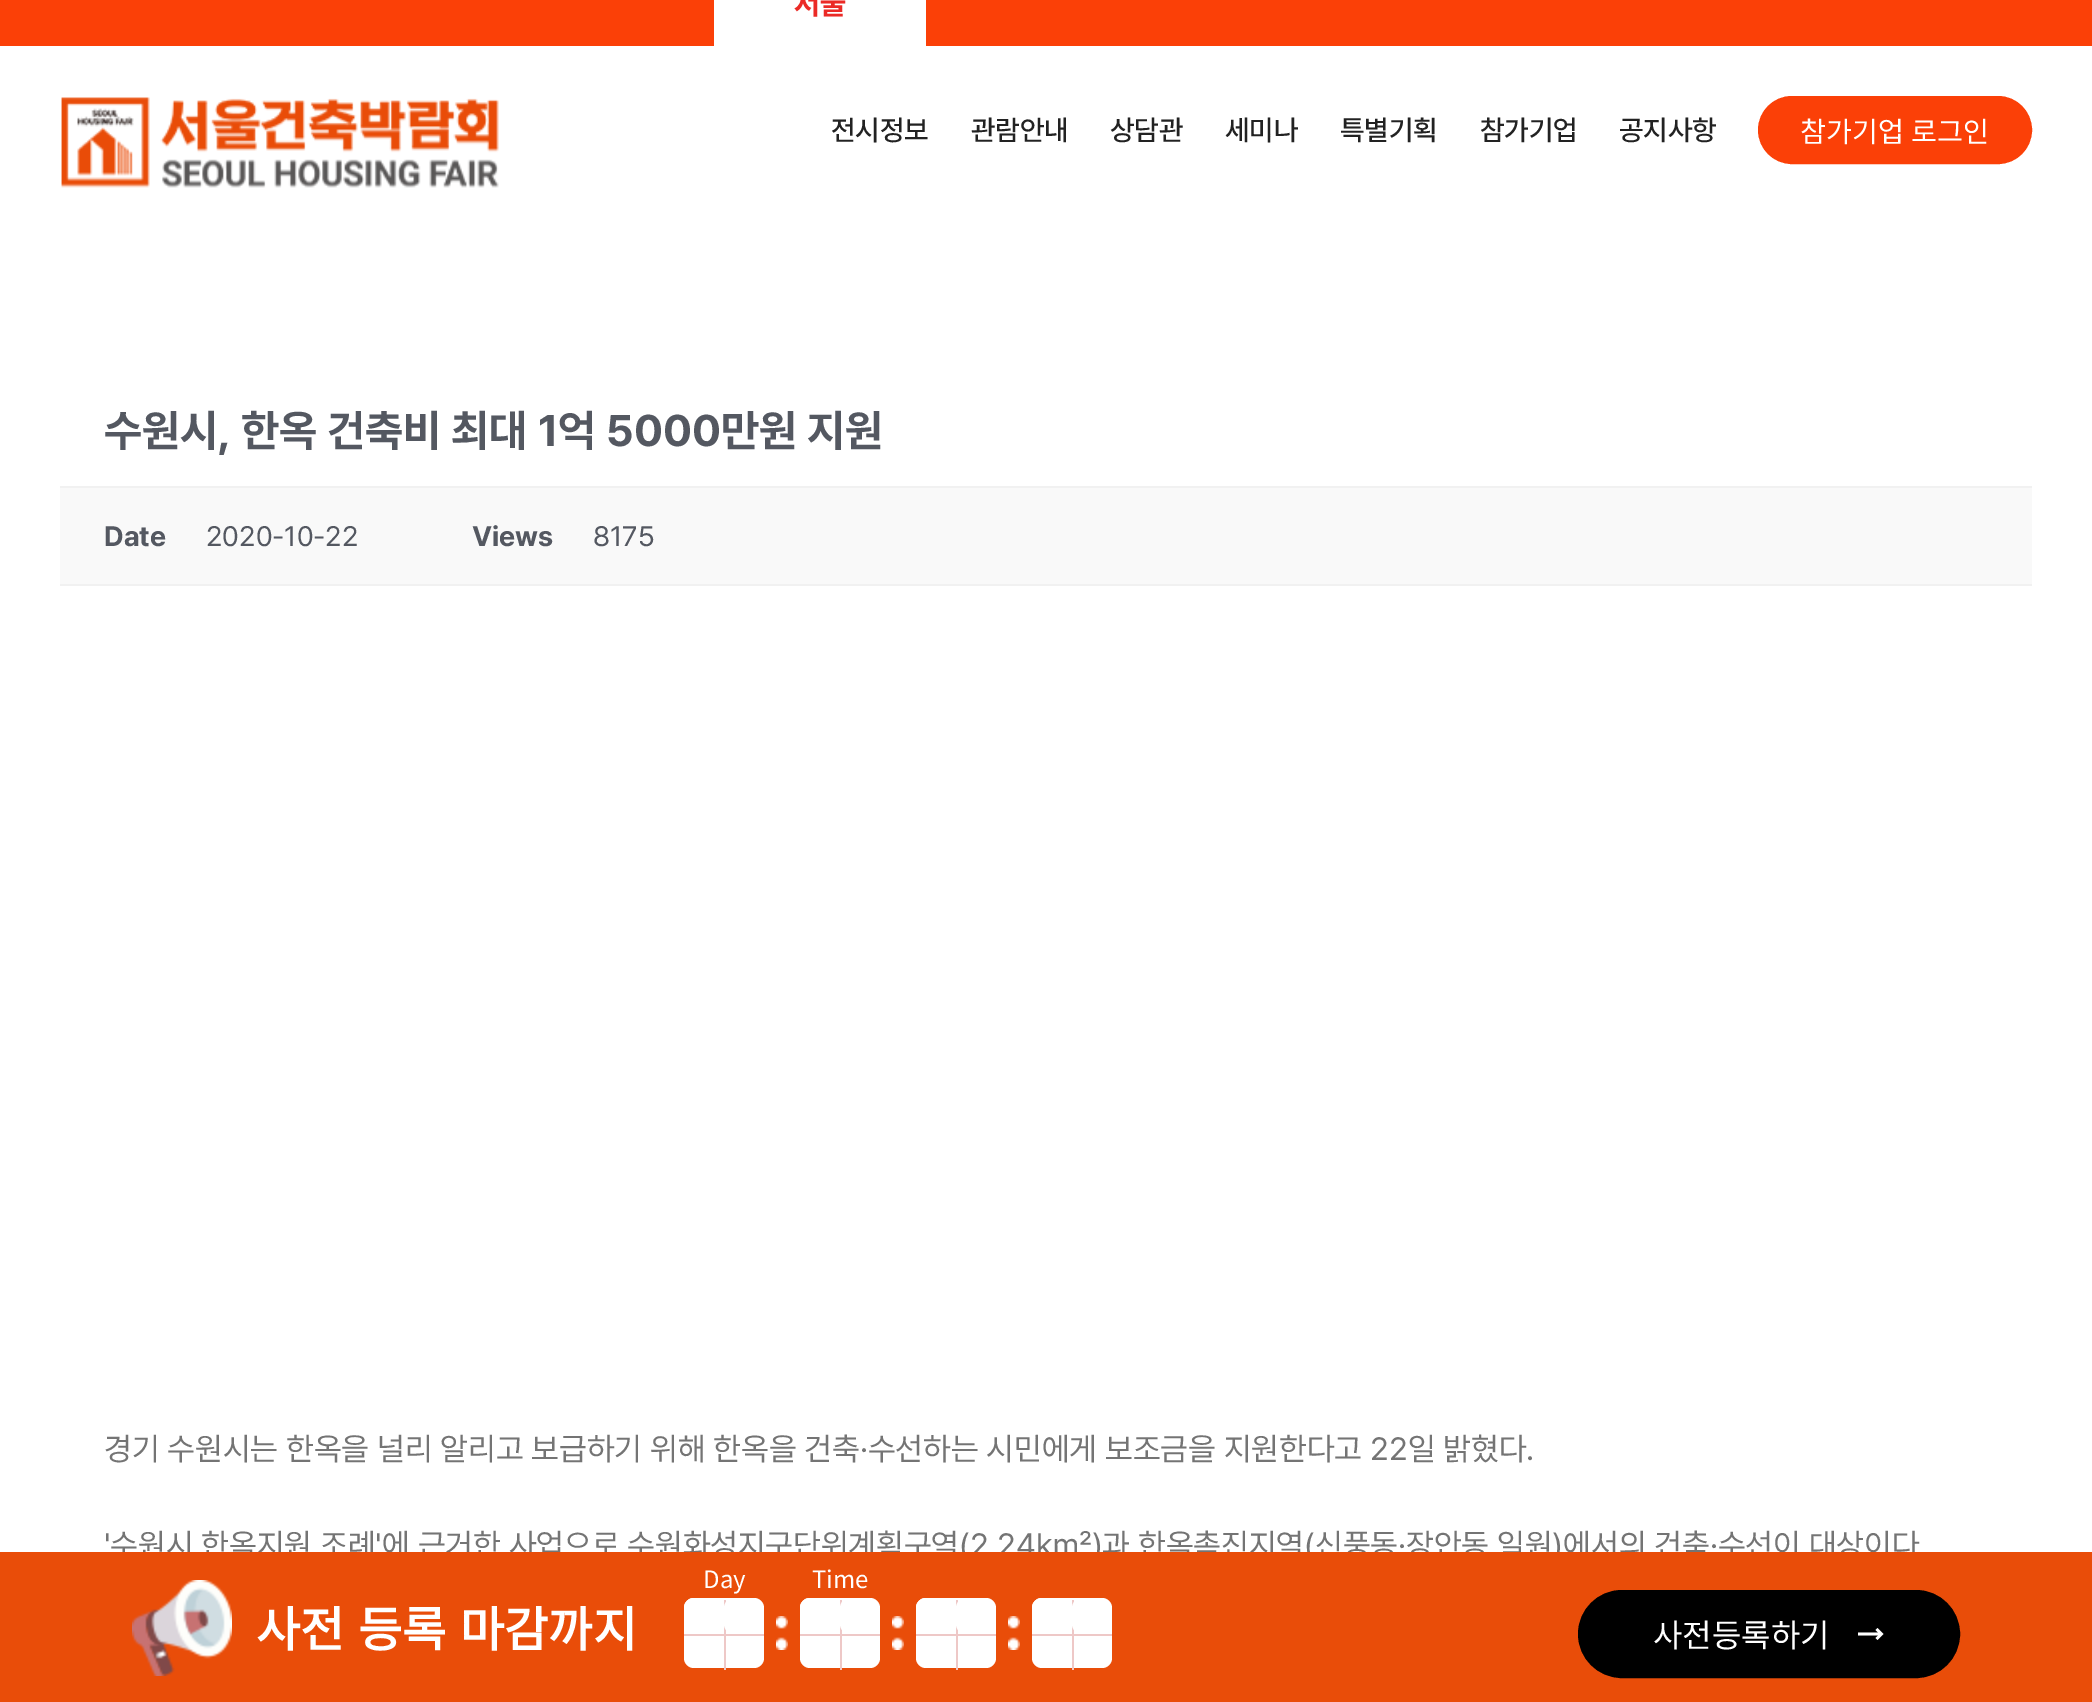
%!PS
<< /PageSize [2092 1702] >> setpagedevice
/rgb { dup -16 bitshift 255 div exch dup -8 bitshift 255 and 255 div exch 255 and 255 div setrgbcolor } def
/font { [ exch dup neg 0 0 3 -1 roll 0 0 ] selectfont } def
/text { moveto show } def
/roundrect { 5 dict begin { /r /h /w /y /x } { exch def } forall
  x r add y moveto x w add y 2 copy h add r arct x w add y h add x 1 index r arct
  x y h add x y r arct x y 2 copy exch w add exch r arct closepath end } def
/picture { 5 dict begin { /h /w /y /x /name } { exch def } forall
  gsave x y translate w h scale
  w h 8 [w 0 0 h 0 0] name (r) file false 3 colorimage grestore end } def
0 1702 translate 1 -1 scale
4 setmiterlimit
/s1 { /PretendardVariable-Bold 30 font 16#EB2A26 rgb } def
/s2 { /PretendardVariable-Medium 28.25 font 16#222222 rgb } def
/s3 { /PretendardVariable-Bold 44 font 16#545861 rgb } def
/s4 { /PretendardVariable-Bold 28 font 16#545861 rgb } def
/s5 { /PretendardVariable-Regular 28 font 16#545861 rgb } def
/s6 { /PretendardVariable-Regular 32 font 16#747474 rgb } def
/s7 { /NotoSansKR-Thin 24 font 16#FFFFFF rgb } def
/s8 { /NotoSansKR-Thin 32 font 16#FFFFFF rgb } def
16#FFFFFF rgb
0 0 2092 1702 rectfill
16#FB4007 rgb
0 0 2092 46 rectfill
16#FFFFFF rgb
714 0 212 46 rectfill
s1
(서울) 794 14 text
(pic1.raw) 61 97 438 91 picture
s2
(전시정보) 831 140 text
(관람안내) 971 140 text
(상담관) 1110 140 text
(세미나) 1225 140 text
(특별기획) 1340 140 text
(참가기업) 1480 140 text
(공지사항) 1619 140 text
16#FB4007 rgb
1759 97 272 66 33 roundrect gsave fill grestore
2 setlinewidth
stroke
/NotoSansKR-Thin 28.25 font
16#FFFFFF rgb
1800 142 moveto 1 0 32 (참가기업 로그인) widthshow
s3
(수원시, 한옥 건축비 최대 1억 5000만원 지원) 104 446 text
16#F9F9F9 rgb
60 488 1972 96 rectfill
16#F1F1F1 rgb
60 486 1972 2 rectfill
60 584 1972 2 rectfill
s4
(Date) 104 546 text
s5
(2020-10-22) 206 546 text
s4
(Views) 472 546 text
s5
(8175) 593 546 text
s6
(경기 수원시는 한옥을 널리 알리고 보급하기 위해 한옥을 건축·수선하는 시민에게 보조금을 지원한다고 22일 밝혔다.) 104 1460 text
('수원시 한옥지원 조례'에 근거한 사업으로 수원화성지구단위계획구역\(2.24㎢\)과 한옥촉진지역\(신풍동·장안동 일원\)에서의 건축·수선이 대상이다) 104 1556 text
16#E94D09 rgb
0 1552 2092 150 rectfill
16#FFFFFF rgb
684 1598 80 70 10 roundrect fill
s7
(Day) 703 1588 text
684 1598 38 36 10 roundrect fill
16#EEC8C7 rgb
724 1600 2 70 rectfill
16#FFFFFF rgb
724 1598 38 36 10 roundrect fill
16#EEC8C7 rgb
684 1634 80 2 rectfill
16#FFFFFF rgb
800 1598 80 70 10 roundrect fill
(Time) 812 1588 text
800 1598 38 36 10 roundrect fill
16#EEC8C7 rgb
840 1600 2 70 rectfill
16#FFFFFF rgb
840 1598 38 36 10 roundrect fill
16#EEC8C7 rgb
800 1634 80 2 rectfill
(pic2.raw) 776 1616 12 34 picture
(pic2.raw) 892 1616 12 34 picture
16#FFFFFF rgb
916 1598 80 70 10 roundrect fill
916 1598 38 36 10 roundrect fill
16#EEC8C7 rgb
956 1600 2 70 rectfill
16#FFFFFF rgb
956 1598 38 36 10 roundrect fill
16#EEC8C7 rgb
916 1634 80 2 rectfill
(pic2.raw) 1008 1616 12 34 picture
16#FFFFFF rgb
1032 1598 80 70 10 roundrect fill
1032 1598 38 36 10 roundrect fill
16#EEC8C7 rgb
1072 1600 2 70 rectfill
16#FFFFFF rgb
1072 1598 38 36 10 roundrect fill
16#EEC8C7 rgb
1032 1634 80 2 rectfill
(pic3.raw) 132 1580 100 96 picture
/NotoSansKR-Bold 48 font
16#FFFFFF rgb
256 1647 moveto 3 0 32 (사전 등록 마감까지) widthshow
16#000000 rgb
1580 1592 378 84 42 roundrect gsave fill grestore
4 setlinewidth
stroke
s8
(사전등록하기) 1653 1647 text
1877.5 1640 moveto 1875.5 1638 lineto 1878 1635.5 lineto 1858 1635.5 lineto 1858 1632.5 lineto 1878 1632.5 lineto 1875.5 1630 lineto 1877.5 1628 lineto 1883.5 1634 lineto closepath fill
showpage
